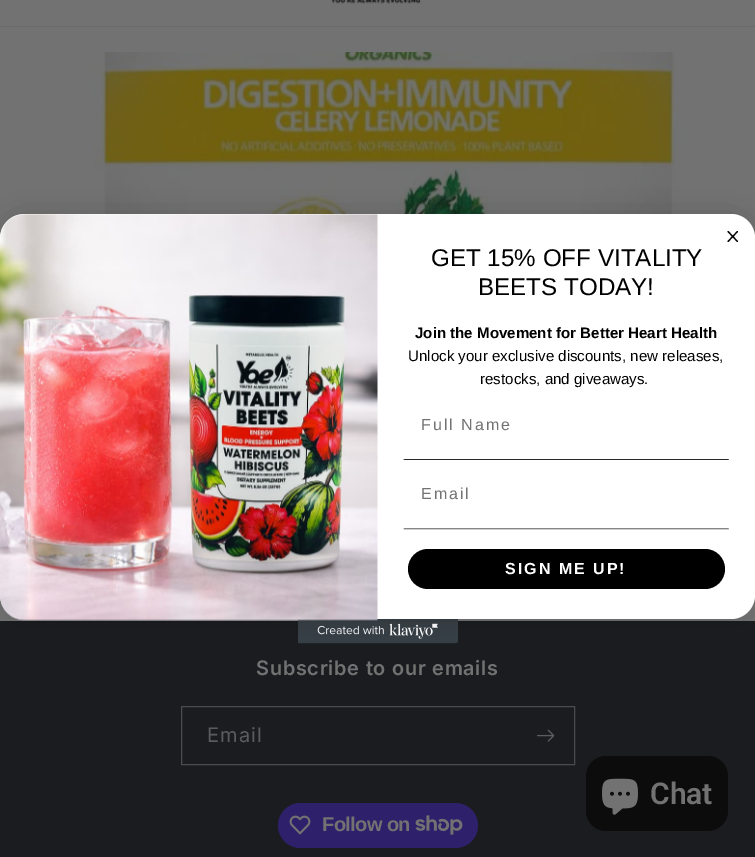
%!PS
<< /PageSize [755 857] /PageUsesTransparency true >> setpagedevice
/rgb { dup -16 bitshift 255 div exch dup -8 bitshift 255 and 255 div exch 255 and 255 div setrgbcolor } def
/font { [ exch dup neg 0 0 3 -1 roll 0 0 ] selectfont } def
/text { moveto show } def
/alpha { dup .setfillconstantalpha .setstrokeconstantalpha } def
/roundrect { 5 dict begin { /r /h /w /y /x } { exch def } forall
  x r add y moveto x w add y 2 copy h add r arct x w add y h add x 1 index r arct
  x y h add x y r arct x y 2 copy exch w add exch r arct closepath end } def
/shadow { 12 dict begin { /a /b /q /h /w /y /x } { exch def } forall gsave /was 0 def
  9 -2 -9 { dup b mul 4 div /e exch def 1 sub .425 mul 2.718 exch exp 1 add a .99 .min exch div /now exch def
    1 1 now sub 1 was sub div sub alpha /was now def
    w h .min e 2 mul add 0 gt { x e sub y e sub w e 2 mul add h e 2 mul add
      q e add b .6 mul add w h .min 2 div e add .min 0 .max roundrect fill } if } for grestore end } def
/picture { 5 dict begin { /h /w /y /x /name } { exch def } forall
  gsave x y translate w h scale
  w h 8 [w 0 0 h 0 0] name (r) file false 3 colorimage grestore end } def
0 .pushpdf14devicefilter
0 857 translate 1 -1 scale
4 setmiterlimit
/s1 { /LiberationSans-Regular 24.2 font 16#000000 rgb } def
/s2 { /LiberationSans-Bold 15.1 font 16#000000 rgb } def
/s3 { /LiberationSans-Regular 15.1 font 16#000000 rgb } def
/s4 { /Roboto-SemiBold 30 font 16#727272 rgb } def
16#727272 rgb
0 0 755 857 rectfill
16#6A6A6A rgb
0 26 755 1 rectfill
(pic1.raw) 331 0 90 4 picture
(pic2.raw) 19 52 717 163 picture
16#1A1C20 rgb
0 621 755 236 rectfill
(pic6.raw) 298 619 160 25 picture
16#000000 rgb
0 214 755 405 24 15 0.15 shadow
16#FFFFFF rgb
0 214 755 405 24 roundrect fill
16#000000 rgb
1.2 setlinewidth
1 setlinecap
1 setlinejoin
728 231.5 moveto 737.5 241.5 lineto 728 241.5 moveto 737.5 231.5 lineto closepath stroke
(pic3.raw) 0 214 378 407 picture
s1
(GET 15% OFF VITALITY) 431 266 text
(BEETS TODAY!) 478 295 text
s2
(Join the Movement for Better Heart Health) 415 338 text
s3
(Unlock your exclusive discounts, new releases,) 408 361 text
(restocks, and giveaways.) 480 384 text
/LiberationSans-Regular 16 font
16#727272 rgb
421 430 moveto 2 0 (Full Name) ashow
(pic4.raw) 403 459 326 1 picture
421 499 moveto 2 0 (Email) ashow
(pic5.raw) 403 528 326 2 picture
16#000000 rgb
408 549 317 40 20 roundrect fill
/LiberationSans-Bold 16 font
16#FFFFFF rgb
505 574 moveto 2 0 (SIGN ME UP!) ashow
/Inter-SemiBold 20 font
16#727272 rgb
256 675 moveto 0.75 0 (Subscribe to our emails) ashow
16#4A4B4D rgb
1 setlinewidth
0 setlinecap
0 setlinejoin
181.5 706.5 393 58 rectstroke
/Inter-Regular 20 font
16#5C5C5E rgb
207 742 moveto 1.25 0 (Email) ashow
(pic7.raw) 537 729 18 13 picture
16#2E206A rgb
278 803 200 45 22.5 roundrect fill
(pic8.raw) 289 815 22 20 picture
/LiberationSans-Bold 20 font
16#727272 rgb
322 831 moveto -0.6 0 (Follow on) ashow
(pic9.raw) 415 815 48 20 picture
16#0C0C0C rgb
586 756 142 75 20 roundrect fill
(pic10.raw) 602 778 36 37 picture
s4
(Chat) 650 804 text
.poppdf14devicefilter showpage
